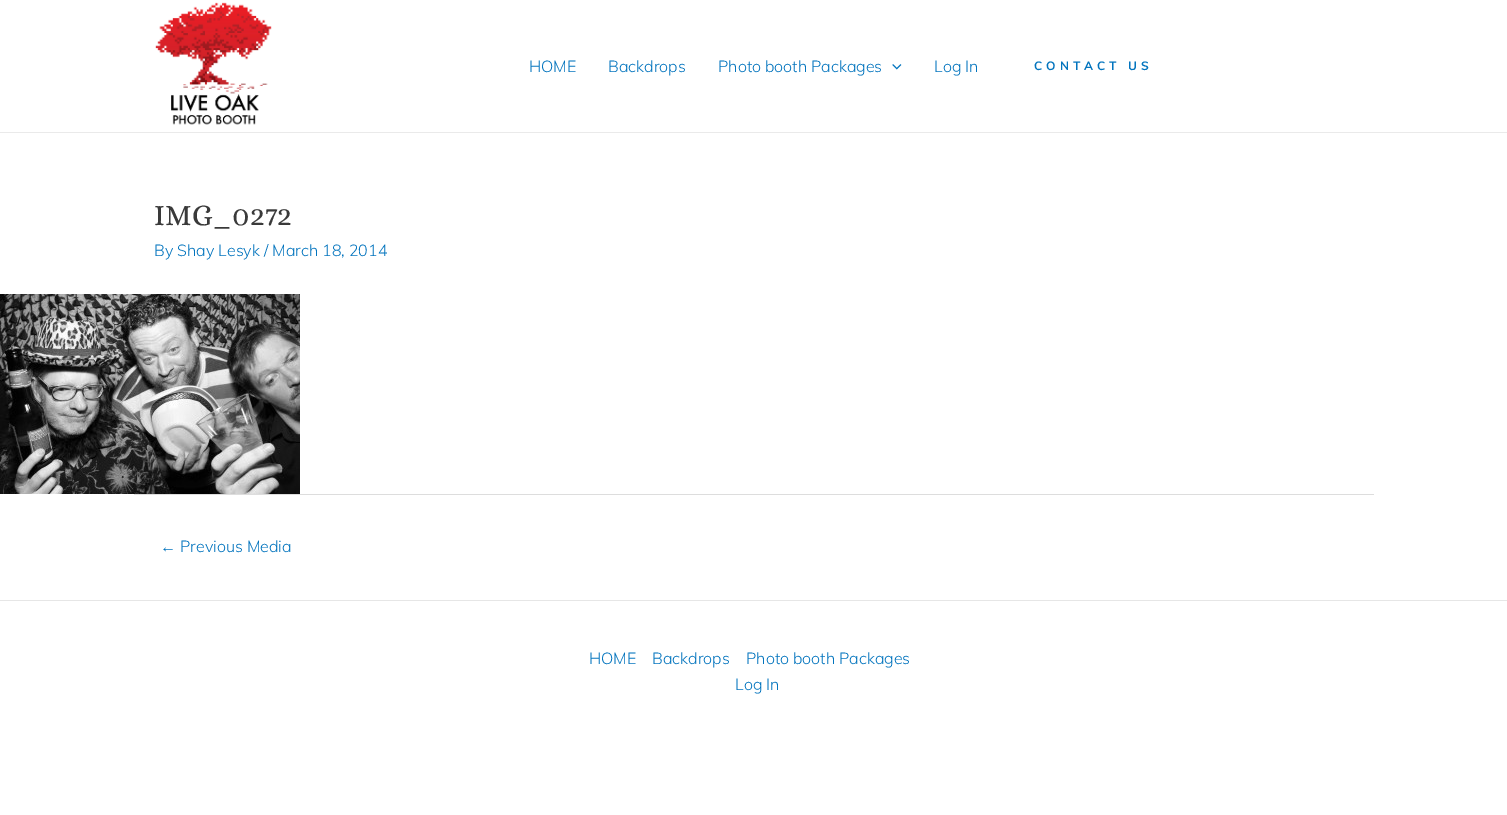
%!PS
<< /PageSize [1507 815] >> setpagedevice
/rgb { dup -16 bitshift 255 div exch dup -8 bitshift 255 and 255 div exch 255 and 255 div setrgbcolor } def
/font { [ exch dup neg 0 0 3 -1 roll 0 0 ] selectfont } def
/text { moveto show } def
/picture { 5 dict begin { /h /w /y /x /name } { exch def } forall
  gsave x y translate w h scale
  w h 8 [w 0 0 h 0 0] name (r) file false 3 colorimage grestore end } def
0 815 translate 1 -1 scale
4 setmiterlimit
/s1 { /Muli-Light 16 font 16#0274BE rgb } def
/s2 { /Alice-Regular 30 font 16#3A3A3A rgb } def
/s3 { /LiberationSans-Regular 16 font 16#0274BE rgb } def
16#FFFFFF rgb
0 0 1507 815 rectfill
16#EAEAEA rgb
0 132 1507 1 rectfill
(pic1.raw) 155 2 117 123 picture
s1
(HOME) 529 72 text
(Backdrops) 608 72 text
(Photo booth Packages) 718 72 text
(pic2.raw) 892 64 10 6 picture
(Log In) 934 72 text
/Muli-Bold 12 font
1034 70 moveto 4 0 (CONTACT US) ashow
s2
(IMG_0272) 154 225 text
s1
(By Shay Lesyk / March 18, 2014) 154 256 text
(pic3.raw) 0 294 300 200 picture
16#DDDDDD rgb
134 494 1240 1 rectfill
s3
(←) 160 552 text
s1
(Previous Media) 180 552 text
16#E6E6E6 rgb
0 600 1507 1 rectfill
s1
(HOME) 589 664 text
(Backdrops) 652 664 text
(Photo booth Packages) 746 664 text
(Log In) 735 690 text
showpage
